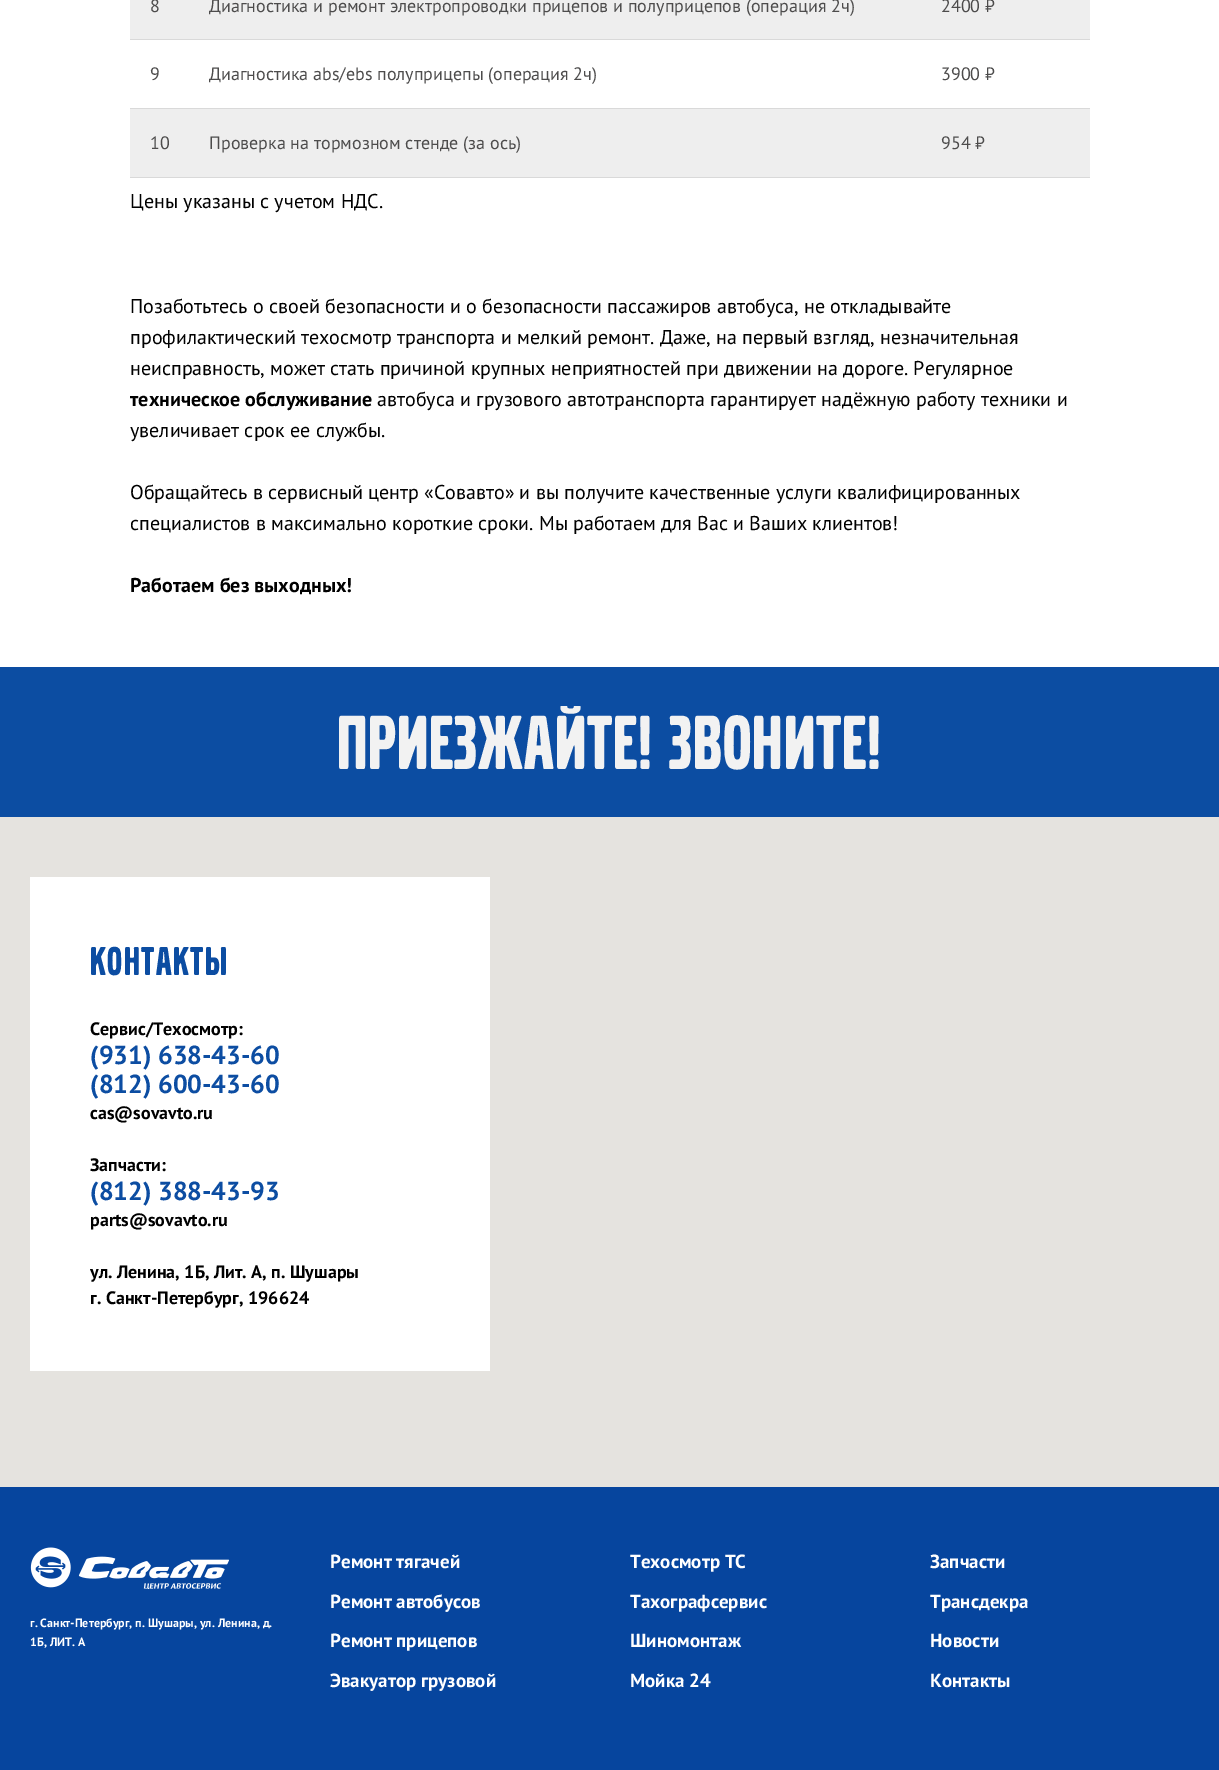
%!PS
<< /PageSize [1219 1770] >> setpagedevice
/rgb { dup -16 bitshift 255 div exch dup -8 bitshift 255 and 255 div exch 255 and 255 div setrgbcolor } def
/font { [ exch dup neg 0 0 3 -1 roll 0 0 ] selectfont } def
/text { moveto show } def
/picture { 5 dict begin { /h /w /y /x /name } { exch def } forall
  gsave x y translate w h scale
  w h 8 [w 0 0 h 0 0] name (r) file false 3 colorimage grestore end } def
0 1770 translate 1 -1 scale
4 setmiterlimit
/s1 { /PTSans-Regular 18 font 16#4D4C4C rgb } def
/s2 { /PTSans-Regular 20 font 16#000000 rgb } def
/s3 { /PTSans-Bold 20 font 16#000000 rgb } def
/s4 { /PTSans-Bold 18 font 16#000000 rgb } def
/s5 { /PTSans-Bold 26 font 16#0C4DA2 rgb } def
/s6 { /PTSans-Bold 12 font 16#FFFFFF rgb } def
/s7 { /PTSans-Bold 19 font 16#FFFFFF rgb } def
16#FFFFFF rgb
0 0 1219 1770 rectfill
16#EEEEEE rgb
130 0 960 39 rectfill
16#D9D9D9 rgb
130 39 960 1 rectfill
s1
(8) 150 12 text
(Диагностика и ремонт электропроводки прицепов и полуприцепов \(операция 2ч\)) 209 12 text
(2400 ₽) 941 12 text
16#D9D9D9 rgb
130 108 960 1 rectfill
s1
(9) 150 80 text
(Диагностика abs/ebs полуприцепы \(операция 2ч\)) 209 80 text
(3900 ₽) 941 80 text
16#EEEEEE rgb
130 109 960 68 rectfill
16#D9D9D9 rgb
130 177 960 1 rectfill
s1
(10) 150 149 text
(Проверка на тормозном стенде \(за ось\)) 209 149 text
(954 ₽) 941 149 text
s2
(Цены указаны с учетом НДС.) 130 208 text
(Позаботьтесь о своей безопасности и о безопасности пассажиров автобуса, не откладывайте) 130 313 text
(профилактический техосмотр транспорта и мелкий ремонт. Даже, на первый взгляд, незначительная) 130 344 text
(неисправность, может стать причиной крупных неприятностей при движении на дороге. Регулярное) 130 375 text
s3
(техническое обслуживание) 130 406 text
s2
(автобуса и грузового автотранспорта гарантирует надёжную работу техники и) 377 406 text
(увеличивает срок ее службы.) 130 437 text
(Обращайтесь в сервисный центр «Совавто» и вы получите качественные услуги квалифицированных) 130 499 text
(специалистов в максимально короткие сроки. Мы работаем для Вас и Ваших клиентов!) 130 530 text
s3
(Работаем без выходных!) 130 592 text
16#0C4DA2 rgb
0 667 1219 150 rectfill
/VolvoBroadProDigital-Medium 80 font
16#F2F2F2 rgb
337 769 moveto 1 0 (ПРИЕЗЖАЙТЕ! ЗВОНИТЕ!) ashow
16#E5E3DF rgb
0 817 1219 670 rectfill
16#FFFFFF rgb
30 877 460 494 rectfill
/VolvoBroadProDigital-Medium 42 font
16#0C4DA2 rgb
90 975 moveto 1.5 0 (Контакты) ashow
s4
(Сервис/Техосмотр:) 90 1035 text
s5
(\(931\) 638-43-60) 90 1064 text
(\(812\) 600-43-60) 90 1093 text
s4
(cas@sovavto.ru) 90 1119 text
(Запчасти:) 90 1171 text
s5
(\(812\) 388-43-93) 90 1200 text
s4
(parts@sovavto.ru) 90 1226 text
(ул. Ленина, 1Б, Лит. А, п. Шушары) 90 1278 text
(г. Санкт-Петербург, 196624) 90 1304 text
16#06459E rgb
0 1487 1219 283 rectfill
(pic1.raw) 30 1547 199 42 picture
s6
(г. Санкт-Петербург, п. Шушары, ул. Ленина, д.) 30 1627 text
(1Б, ЛИТ. А) 30 1646 text
s7
(Ремонт тягачей) 330 1568 text
(Ремонт автобусов) 330 1608 text
(Ремонт прицепов) 330 1647 text
(Эвакуатор грузовой) 330 1687 text
(Техосмотр ТС) 630 1568 text
(Тахографсервис) 630 1608 text
(Шиномонтаж) 630 1647 text
(Мойка 24) 630 1687 text
(Запчасти) 930 1568 text
(Трансдекра) 930 1608 text
(Новости) 930 1647 text
(Контакты) 930 1687 text
showpage
